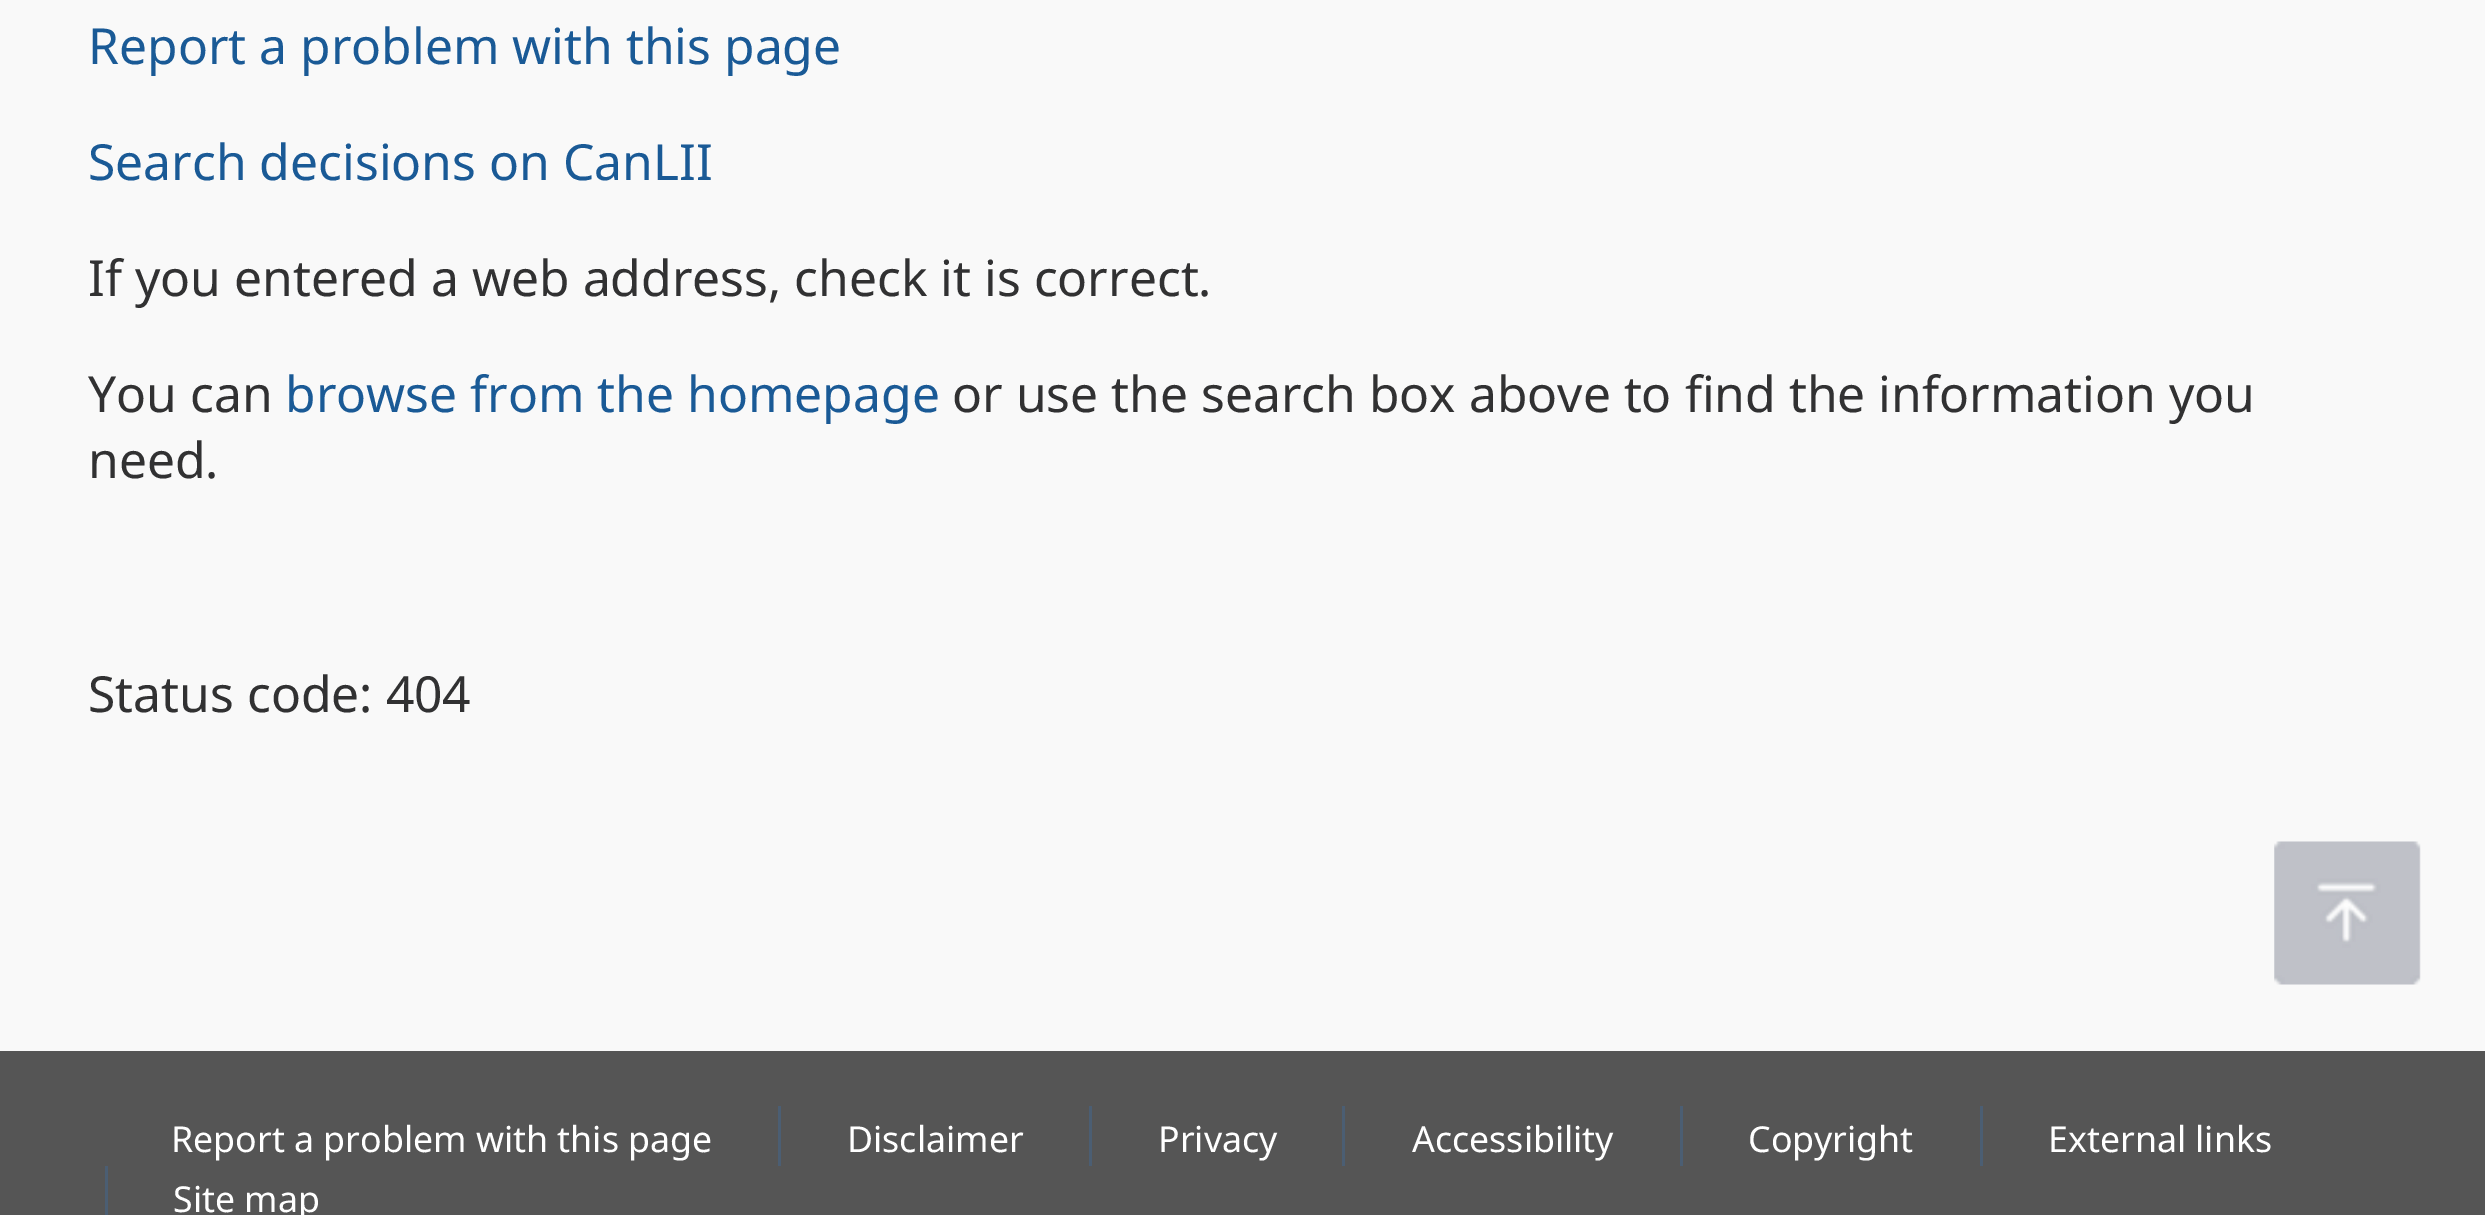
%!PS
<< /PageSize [2485 1215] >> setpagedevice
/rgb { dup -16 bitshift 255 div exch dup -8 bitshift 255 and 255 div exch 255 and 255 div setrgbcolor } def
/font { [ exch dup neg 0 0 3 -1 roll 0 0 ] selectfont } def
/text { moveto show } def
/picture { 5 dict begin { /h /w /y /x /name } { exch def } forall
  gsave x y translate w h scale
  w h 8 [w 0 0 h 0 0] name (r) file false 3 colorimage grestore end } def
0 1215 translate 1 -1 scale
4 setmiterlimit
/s1 { /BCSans-Regular 49.75 font 16#1A5A96 rgb } def
/s2 { /BCSans-Regular 49.75 font 16#313132 rgb } def
/s3 { /BCSans-Regular 35.75 font 16#FFFFFF rgb } def
16#F9F9F9 rgb
0 0 2485 1215 rectfill
s1
(Report a problem with this page) 88 64 text
(Search decisions on CanLII) 88 180 text
s2
(If you entered a web address, check it is correct.) 88 296 text
(You can) 88 412 text
s1
(browse from the homepage) 285 412 text
s2
(or use the search box above to find the information you) 952 412 text
(need.) 88 478 text
(Status code: 404) 88 712 text
(pic1.raw) 2274 841 147 144 picture
16#555555 rgb
0 1051 2485 164 rectfill
s3
(Report a problem with this page) 171 1152 text
16#4B5E73 rgb
778 1106 3 60 rectfill
s3
(Disclaimer) 847 1152 text
16#4B5E73 rgb
1089 1106 3 60 rectfill
s3
(Privacy) 1158 1152 text
16#4B5E73 rgb
1342 1106 3 60 rectfill
s3
(Accessibility) 1412 1152 text
16#4B5E73 rgb
1680 1106 3 60 rectfill
s3
(Copyright) 1748 1152 text
16#4B5E73 rgb
1980 1106 3 60 rectfill
s3
(External links) 2048 1152 text
16#4B5E73 rgb
105 1166 3 49 rectfill
s3
(Site map) 173 1212 text
showpage
